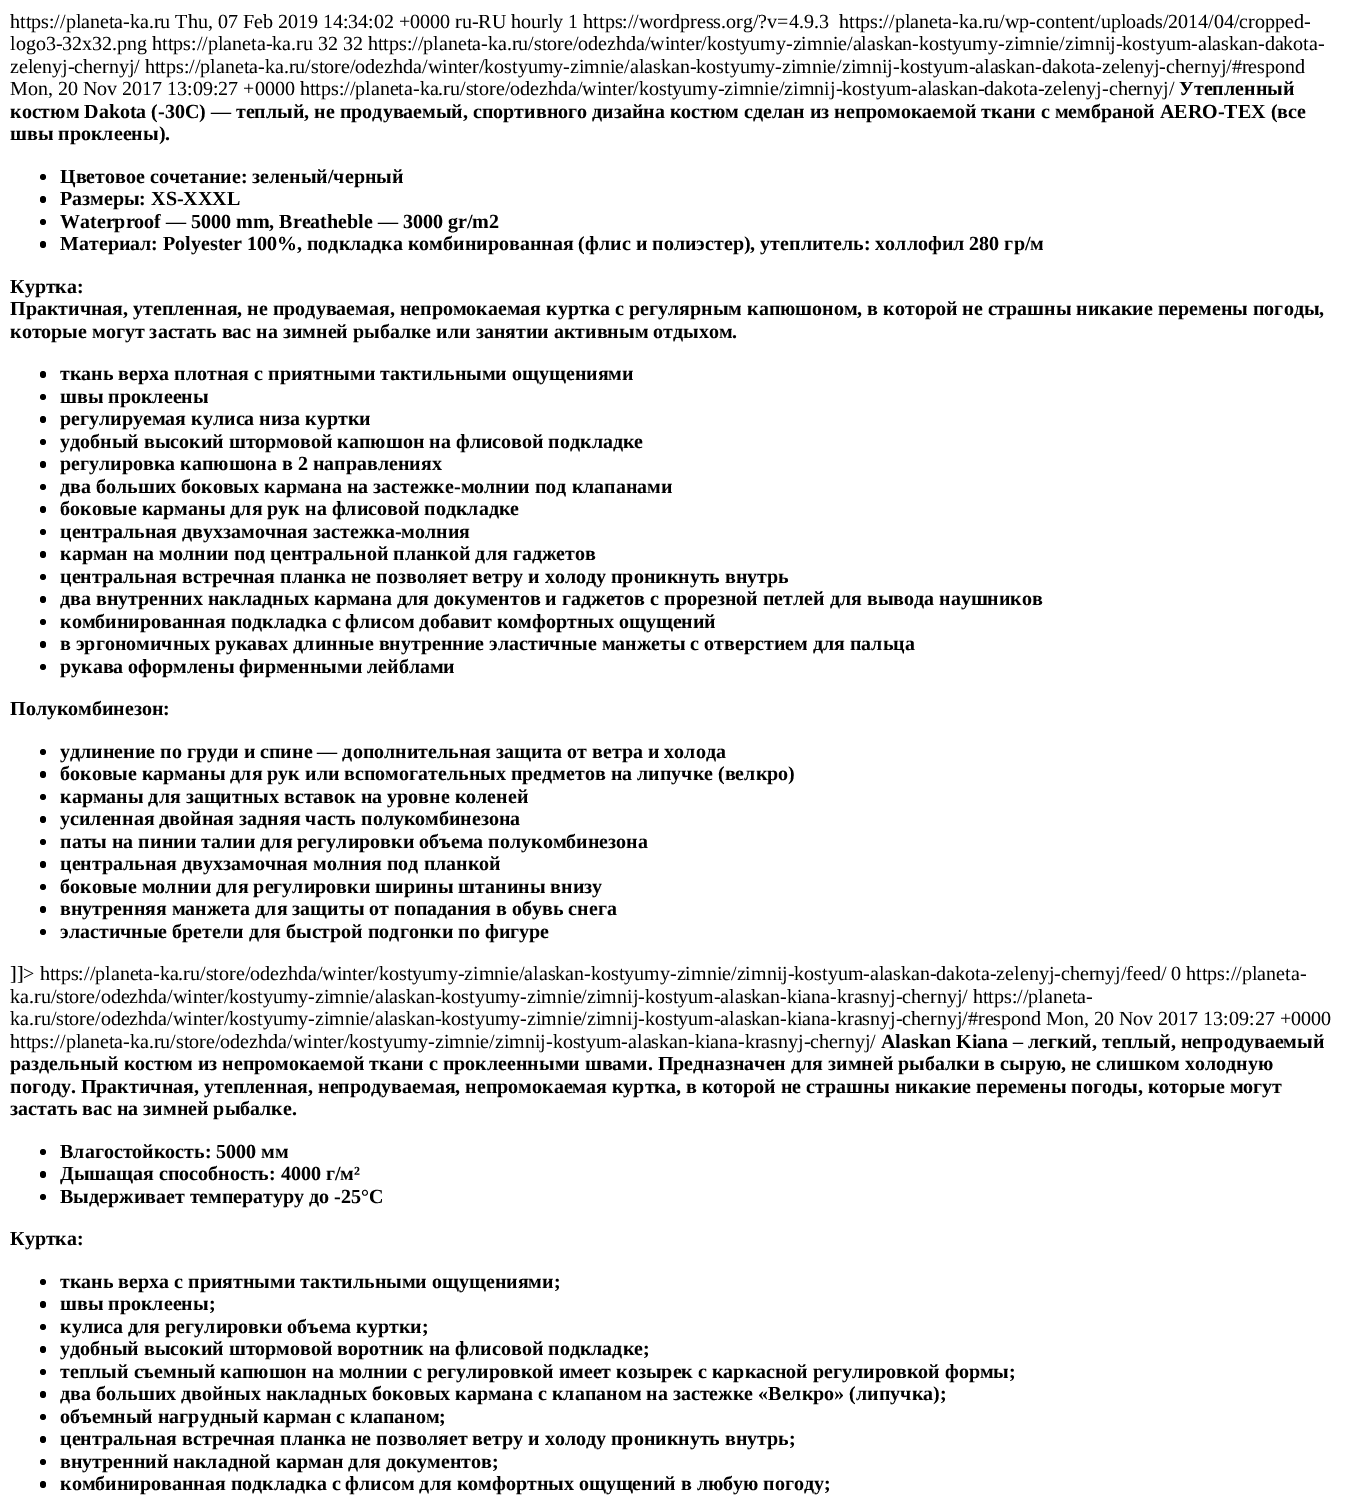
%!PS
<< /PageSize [1349 1498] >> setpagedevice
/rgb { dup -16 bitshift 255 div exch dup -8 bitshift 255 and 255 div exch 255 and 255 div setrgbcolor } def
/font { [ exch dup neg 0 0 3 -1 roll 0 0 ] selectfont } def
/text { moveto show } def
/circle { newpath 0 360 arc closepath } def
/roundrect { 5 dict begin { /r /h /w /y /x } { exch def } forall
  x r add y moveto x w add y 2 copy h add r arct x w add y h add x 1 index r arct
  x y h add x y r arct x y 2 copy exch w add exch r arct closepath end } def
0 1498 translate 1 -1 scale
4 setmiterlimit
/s1 { /LiberationSerif-Regular 20 font 16#000000 rgb } def
/s2 { /LiberationSerif-Bold 20 font 16#000000 rgb } def
16#FFFFFF rgb
0 0 1349 1498 rectfill
s1
(https://planeta-ka.ru Thu, 07 Feb 2019 14:34:02 +0000 ru-RU hourly 1 https://wordpress.org/?v=4.9.3) 10 28 text
(https://planeta-ka.ru/wp-content/uploads/2014/04/cropped-) 839 28 text
(logo3-32x32.png https://planeta-ka.ru 32 32 https://planeta-ka.ru/store/odezhda/winter/kostyumy-zimnie/alaskan-kostyumy-zimnie/zimnij-kostyum-alaskan-dakota-) 10 50 text
(zelenyj-chernyj/ https://planeta-ka.ru/store/odezhda/winter/kostyumy-zimnie/alaskan-kostyumy-zimnie/zimnij-kostyum-alaskan-dakota-zelenyj-chernyj/#respond) 10 73 text
(Mon, 20 Nov 2017 13:09:27 +0000 https://planeta-ka.ru/store/odezhda/winter/kostyumy-zimnie/zimnij-kostyum-alaskan-dakota-zelenyj-chernyj/) 10 95 text
s2
(Утепленный) 1179 95 text
(костюм Dakota \(-30С\) — теплый, не продуваемый, спортивного дизайна костюм сделан из непромокаемой ткани с мембраной AERO-TEX \(все) 10 118 text
(швы проклеены\).) 10 140 text
43 177 3 circle fill
(Цветовое сочетание: зеленый/черный) 60 183 text
40 196 6 7 3 roundrect fill
(Размеры: XS-XXXL) 60 205 text
43 222 3 circle fill
(Waterproof — 5000 mm, Breatheble — 3000 gr/m2) 60 228 text
40 241 6 7 3 roundrect fill
(Материал: Polyester 100%, подкладка комбинированная \(флис и полиэстер\), утеплитель: холлофил 280 гр/м) 60 250 text
(Куртка:) 10 293 text
(Практичная, утепленная, не продуваемая, непромокаемая куртка с регулярным капюшоном, в которой не страшны никакие перемены погоды,) 10 315 text
(которые могут застать вас на зимней рыбалке или занятии активным отдыхом.) 10 338 text
40 371 6 7 3 roundrect fill
(ткань верха плотная с приятными тактильными ощущениями) 60 380 text
43 397 3 circle fill
(швы проклеены) 60 403 text
40 416 6 7 3 roundrect fill
(регулируемая кулиса низа куртки) 60 425 text
43 442 3 circle fill
(удобный высокий штормовой капюшон на флисовой подкладке) 60 448 text
40 461 6 7 3 roundrect fill
(регулировка капюшона в 2 направлениях) 60 470 text
43 487 3 circle fill
(два больших боковых кармана на застежке-молнии под клапанами) 60 493 text
40 506 6 7 3 roundrect fill
(боковые карманы для рук на флисовой подкладке) 60 515 text
43 532 3 circle fill
(центральная двухзамочная застежка-молния) 60 538 text
40 551 6 7 3 roundrect fill
(карман на молнии под центральной планкой для гаджетов) 60 560 text
43 577 3 circle fill
(центральная встречная планка не позволяет ветру и холоду проникнуть внутрь) 60 583 text
40 596 6 7 3 roundrect fill
(два внутренних накладных кармана для документов и гаджетов с прорезной петлей для вывода наушников) 60 605 text
43 622 3 circle fill
(комбинированная подкладка с флисом добавит комфортных ощущений) 60 628 text
40 641 6 7 3 roundrect fill
(в эргономичных рукавах длинные внутренние эластичные манжеты с отверстием для пальца) 60 650 text
43 667 3 circle fill
(рукава оформлены фирменными лейблами) 60 673 text
(Полукомбинезон:) 10 715 text
43 752 3 circle fill
(удлинение по груди и спине — дополнительная защита от ветра и холода) 60 758 text
40 771 6 7 3 roundrect fill
(боковые карманы для рук или вспомогательных предметов на липучке \(велкро\)) 60 780 text
43 797 3 circle fill
(карманы для защитных вставок на уровне коленей) 60 803 text
40 816 6 7 3 roundrect fill
(усиленная двойная задняя часть полукомбинезона) 60 825 text
43 842 3 circle fill
(паты на пинии талии для регулировки объема полукомбинезона) 60 848 text
40 861 6 7 3 roundrect fill
(центральная двухзамочная молния под планкой) 60 870 text
43 887 3 circle fill
(боковые молнии для регулировки ширины штанины внизу) 60 893 text
40 906 6 7 3 roundrect fill
(внутренняя манжета для защиты от попадания в обувь снега) 60 915 text
43 932 3 circle fill
(эластичные бретели для быстрой подгонки по фигуре) 60 938 text
s1
(]]> https://planeta-ka.ru/store/odezhda/winter/kostyumy-zimnie/alaskan-kostyumy-zimnie/zimnij-kostyum-alaskan-dakota-zelenyj-chernyj/feed/ 0 https://planeta-) 10 980 text
(ka.ru/store/odezhda/winter/kostyumy-zimnie/alaskan-kostyumy-zimnie/zimnij-kostyum-alaskan-kiana-krasnyj-chernyj/ https://planeta-) 10 1003 text
(ka.ru/store/odezhda/winter/kostyumy-zimnie/alaskan-kostyumy-zimnie/zimnij-kostyum-alaskan-kiana-krasnyj-chernyj/#respond Mon, 20 Nov 2017 13:09:27 +0000) 10 1025 text
(https://planeta-ka.ru/store/odezhda/winter/kostyumy-zimnie/zimnij-kostyum-alaskan-kiana-krasnyj-chernyj/) 10 1048 text
s2
(Alaskan Kiana – легкий, теплый, непродуваемый) 881 1048 text
(раздельный костюм из непромокаемой ткани с проклеенными швами. Предназначен для зимней рыбалки в сырую, не слишком холодную) 10 1070 text
(погоду. Практичная, утепленная, непродуваемая, непромокаемая куртка, в которой не страшны никакие перемены погоды, которые могут) 10 1093 text
(застать вас на зимней рыбалке.) 10 1115 text
43 1152 3 circle fill
(Влагостойкость: 5000 мм) 60 1158 text
40 1171 6 7 3 roundrect fill
(Дышащая способность: 4000 г/м²) 60 1180 text
43 1197 3 circle fill
(Выдерживает температуру до -25°С) 60 1203 text
(Куртка:) 10 1245 text
43 1282 3 circle fill
(ткань верха с приятными тактильными ощущениями;) 60 1288 text
40 1301 6 7 3 roundrect fill
(швы проклеены;) 60 1310 text
43 1327 3 circle fill
(кулиса для регулировки объема куртки;) 60 1333 text
40 1346 6 7 3 roundrect fill
(удобный высокий штормовой воротник на флисовой подкладке;) 60 1355 text
43 1372 3 circle fill
(теплый съемный капюшон на молнии с регулировкой имеет козырек с каркасной регулировкой формы;) 60 1378 text
40 1391 6 7 3 roundrect fill
(два больших двойных накладных боковых кармана с клапаном на застежке «Велкро» \(липучка\);) 60 1400 text
43 1417 3 circle fill
(объемный нагрудный карман с клапаном;) 60 1423 text
40 1436 6 7 3 roundrect fill
(центральная встречная планка не позволяет ветру и холоду проникнуть внутрь;) 60 1445 text
43 1462 3 circle fill
(внутренний накладной карман для документов;) 60 1468 text
40 1481 6 7 3 roundrect fill
(комбинированная подкладка с флисом для комфортных ощущений в любую погоду;) 60 1490 text
showpage
